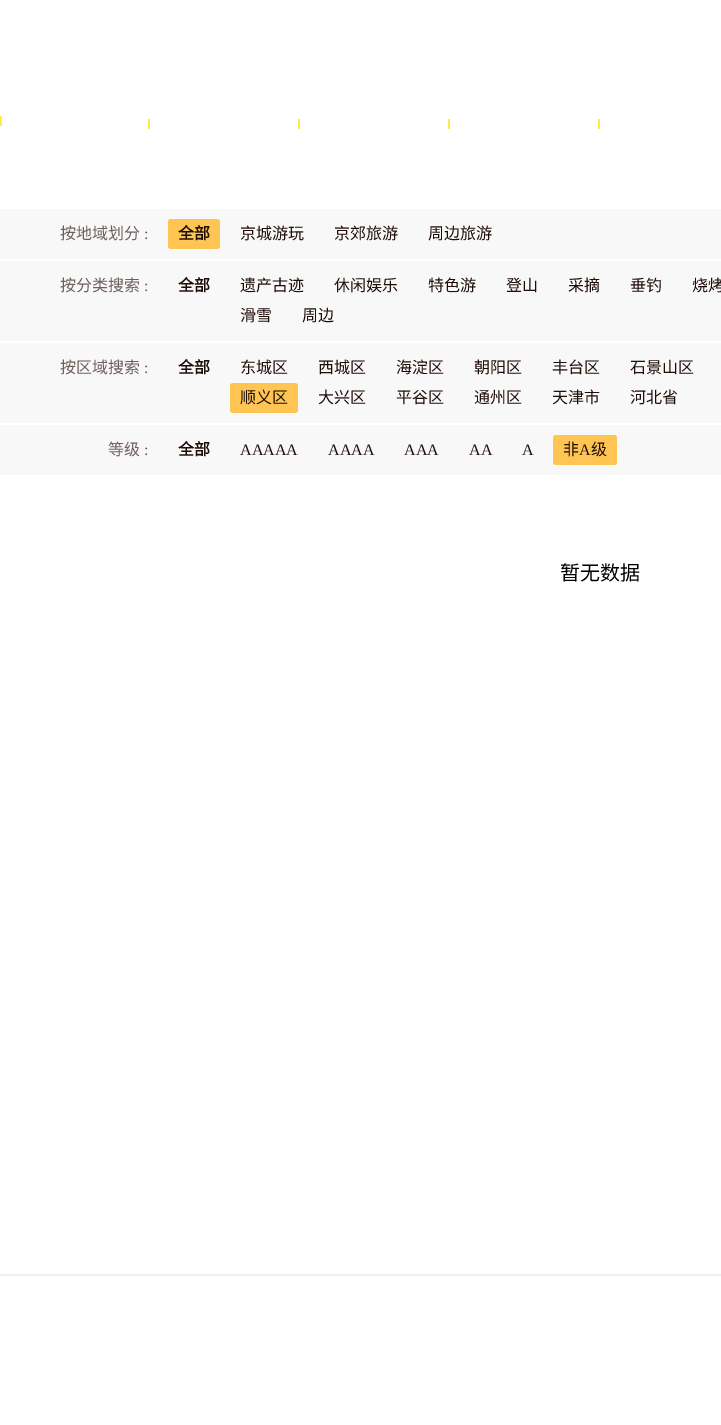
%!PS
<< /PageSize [721 1425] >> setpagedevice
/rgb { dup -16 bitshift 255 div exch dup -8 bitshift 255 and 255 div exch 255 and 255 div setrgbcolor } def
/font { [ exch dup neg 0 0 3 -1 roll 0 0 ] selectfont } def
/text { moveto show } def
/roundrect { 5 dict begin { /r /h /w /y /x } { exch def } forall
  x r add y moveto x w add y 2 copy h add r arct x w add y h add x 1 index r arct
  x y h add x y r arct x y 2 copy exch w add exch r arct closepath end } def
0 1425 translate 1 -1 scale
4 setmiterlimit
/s1 { /NotoSansCJKSC-Regular 16 font 16#6E5F5C rgb } def
/s2 { /LiberationSerif-Regular 16 font 16#6E5F5C rgb } def
/s3 { /NotoSansCJKSC-Bold 16 font 16#1F0D09 rgb } def
/s4 { /NotoSansCJKSC-Regular 16 font 16#1F0D09 rgb } def
/s5 { /LiberationSerif-Regular 16 font 16#1F0D09 rgb } def
/s6 { /NotoSansCJKSC-Regular 20 font 16#000000 rgb } def
16#FFFFFF rgb
0 0 721 1425 rectfill
16#FFEC43 rgb
0 116 2 10 1 roundrect fill
148 119 2 10 1 roundrect fill
298 119 2 10 1 roundrect fill
448 119 2 10 1 roundrect fill
598 119 2 10 1 roundrect fill
16#F1F1F1 rgb
0 1274 721 2 rectfill
16#F8F8F8 rgb
0 209 721 50 rectfill
s1
(按地域划分) 60 239 text
s2
(:) 144 239 text
16#FFC553 rgb
168 219 52 30 3 roundrect fill
s3
(全部) 178 239 text
s4
(京城游玩) 240 239 text
(京郊旅游) 334 239 text
(周边旅游) 428 239 text
16#F8F8F8 rgb
0 261 721 80 rectfill
s1
(按分类搜索) 60 291 text
s2
(:) 144 291 text
s3
(全部) 178 291 text
s4
(遗产古迹) 240 291 text
(休闲娱乐) 334 291 text
(特色游) 428 291 text
(登山) 506 291 text
(采摘) 568 291 text
(垂钓) 630 291 text
(烧烤) 692 291 text
(滑雪) 240 321 text
(周边) 302 321 text
16#F8F8F8 rgb
0 343 721 80 rectfill
s1
(按区域搜索) 60 373 text
s2
(:) 144 373 text
s3
(全部) 178 373 text
s4
(东城区) 240 373 text
(西城区) 318 373 text
(海淀区) 396 373 text
(朝阳区) 474 373 text
(丰台区) 552 373 text
(石景山区) 630 373 text
16#FFC553 rgb
230 383 68 30 3 roundrect fill
s4
(顺义区) 240 403 text
(大兴区) 318 403 text
(平谷区) 396 403 text
(通州区) 474 403 text
(天津市) 552 403 text
(河北省) 630 403 text
16#F8F8F8 rgb
0 425 721 50 rectfill
s1
(等级) 108 455 text
s2
(:) 144 455 text
s3
(全部) 178 455 text
s5
(AAAAA) 240 455 text
(AAAA) 328 455 text
(AAA) 404 455 text
(AA) 469 455 text
(A) 522 455 text
16#FFC553 rgb
553 435 64 30 3 roundrect fill
s4
(非) 563 455 text
s5
(A) 579 455 text
s4
(级) 591 455 text
s6
(暂无数据) 560 580 text
showpage
